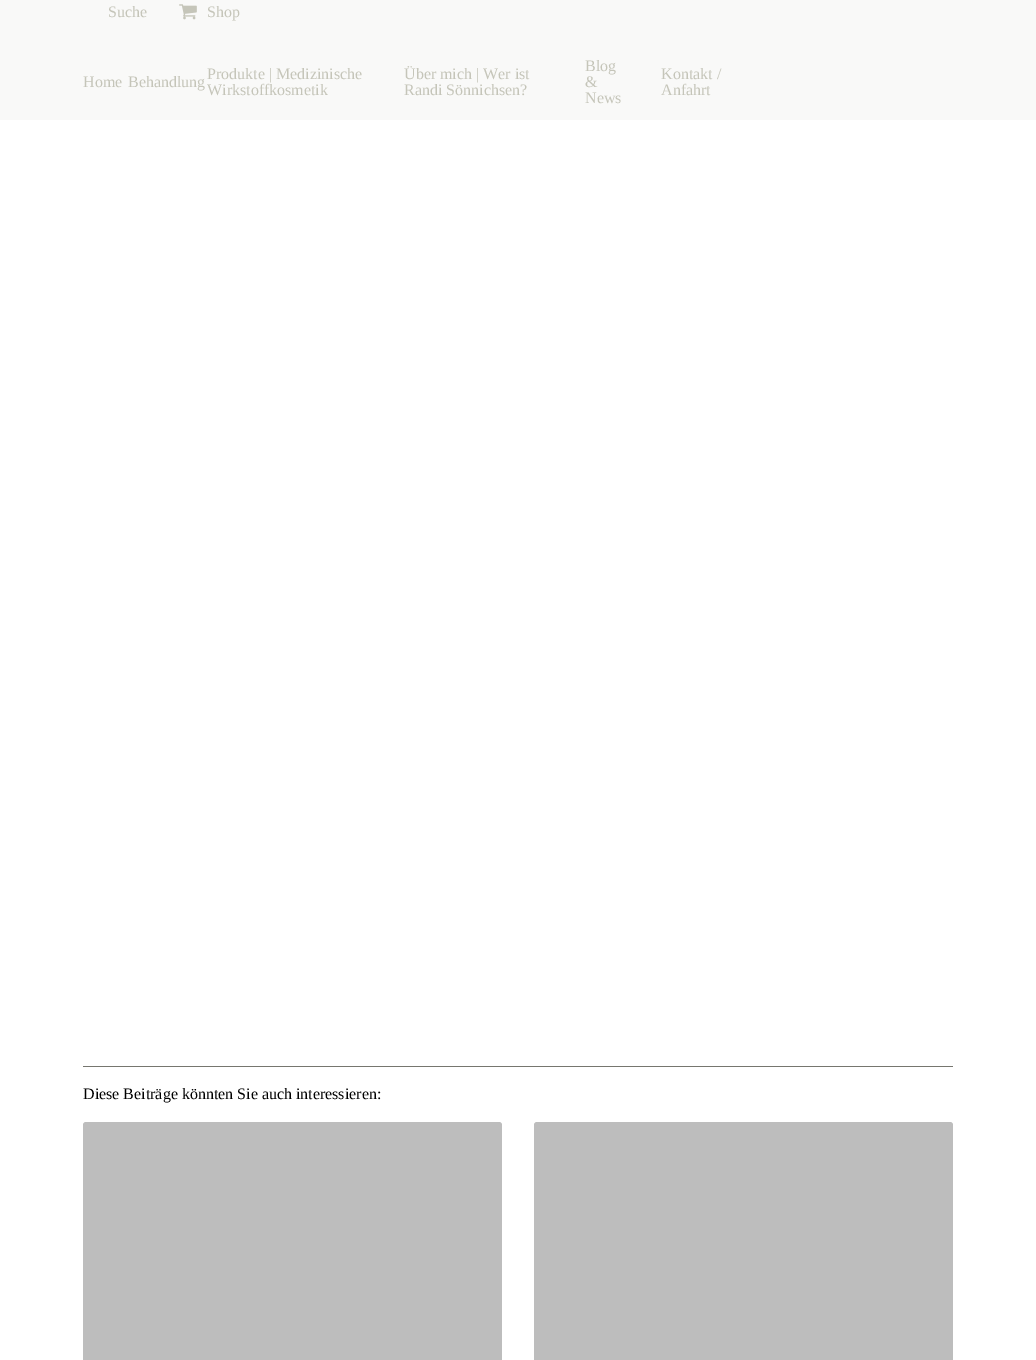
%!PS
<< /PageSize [1036 1360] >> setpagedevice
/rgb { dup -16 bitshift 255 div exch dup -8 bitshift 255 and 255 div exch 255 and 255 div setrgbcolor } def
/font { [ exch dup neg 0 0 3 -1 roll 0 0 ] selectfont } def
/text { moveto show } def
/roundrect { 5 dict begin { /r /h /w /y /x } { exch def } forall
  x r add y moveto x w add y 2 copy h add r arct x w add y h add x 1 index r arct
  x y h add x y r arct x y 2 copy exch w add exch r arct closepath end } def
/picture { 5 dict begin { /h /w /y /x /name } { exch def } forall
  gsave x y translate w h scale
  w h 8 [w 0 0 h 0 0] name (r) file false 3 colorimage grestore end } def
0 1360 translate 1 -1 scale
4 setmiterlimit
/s1 { /LiberationSerif-Regular 16 font 16#C5C5B9 rgb } def
/s2 { /LiberationSerif-Regular 16 font 16#000000 rgb } def
16#FFFFFF rgb
0 0 1036 1360 rectfill
16#F9F9F8 rgb
0 0 1036 120 rectfill
s1
(Suche) 108 17 text
(pic1.raw) 179 4 18 16 picture
(Shop) 207 17 text
(Home) 83 87 text
(Behandlung) 128 87 text
(Produkte | Medizinische) 207 79 text
(Wirkstoffkosmetik) 207 95 text
(Über mich | Wer ist) 404 79 text
(Randi Sönnichsen?) 404 95 text
(Blog) 585 71 text
(&) 585 87 text
(News) 585 103 text
(Kontakt /) 661 79 text
(Anfahrt) 661 95 text
16#76766F rgb
83 1066 870 1 rectfill
s2
(Diese Beiträge könnten Sie auch interessieren:) 83 1099 text
16#BDBDBD rgb
83 1122 419 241 3 roundrect fill
534 1122 419 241 3 roundrect fill
showpage
